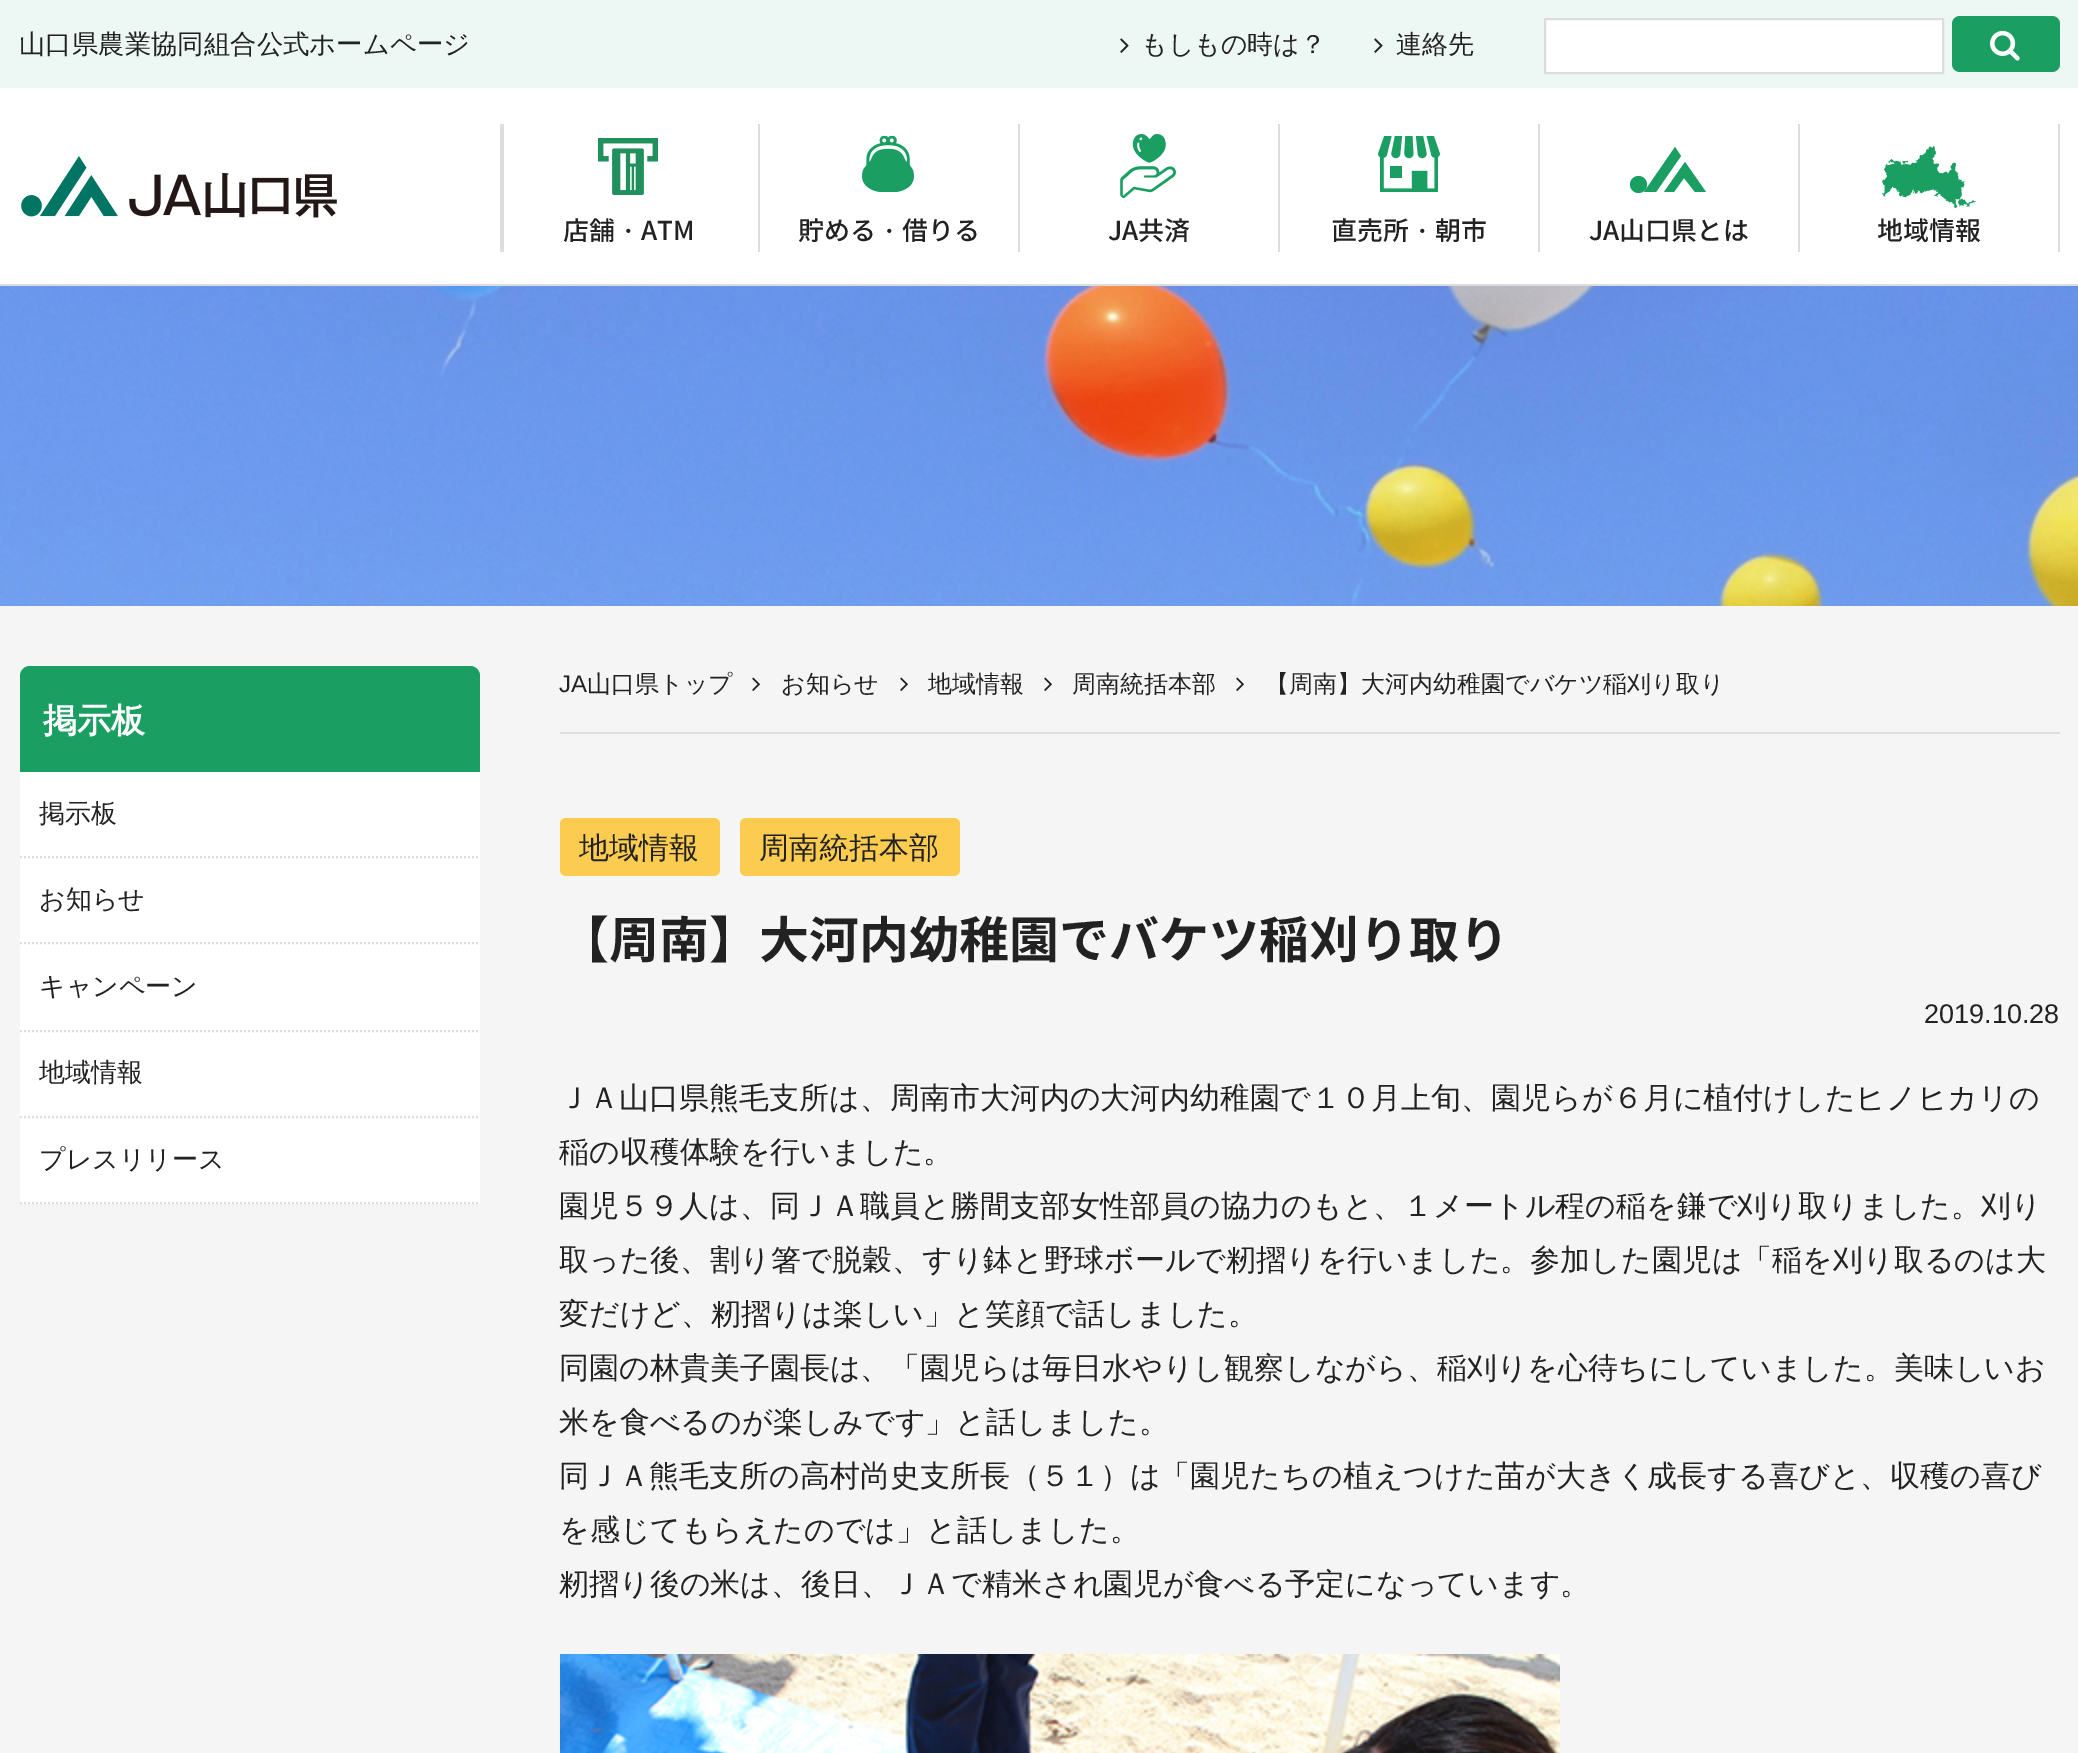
%!PS
<< /PageSize [2078 1753] >> setpagedevice
/rgb { dup -16 bitshift 255 div exch dup -8 bitshift 255 and 255 div exch 255 and 255 div setrgbcolor } def
/font { [ exch dup neg 0 0 3 -1 roll 0 0 ] selectfont } def
/text { moveto show } def
/circle { newpath 0 360 arc closepath } def
/roundrect { 5 dict begin { /r /h /w /y /x } { exch def } forall
  x r add y moveto x w add y 2 copy h add r arct x w add y h add x 1 index r arct
  x y h add x y r arct x y 2 copy exch w add exch r arct closepath end } def
/picture { 5 dict begin { /h /w /y /x /name } { exch def } forall
  gsave x y translate w h scale
  w h 8 [w 0 0 h 0 0] name (r) file false 3 colorimage grestore end } def
0 1753 translate 1 -1 scale
4 setmiterlimit
/s1 { /WenQuanYiZenHei-Medium 26.4 font 16#222222 rgb } def
/s2 { /WenQuanYiZenHei-Medium 26 font 16#222222 rgb } def
/s3 { /NotoSansCJKJP-Medium 26 font 16#222222 rgb } def
/s4 { /WenQuanYiZenHei-Bold 34 font 16#FFFFFF rgb } def
/s5 { /LiberationSans-Regular 24 font 16#222222 rgb } def
/s6 { /WenQuanYiZenHei-Medium 24 font 16#222222 rgb } def
/s7 { /WenQuanYiZenHei-Medium 30 font 16#222222 rgb } def
/s8 { /NotoSansCJKJP-Bold 50 font 16#222222 rgb } def
/s9 { /LiberationSans-Regular 27 font 16#222222 rgb } def
16#FFFFFF rgb
0 0 2078 1753 rectfill
16#DDDDDD rgb
0 284 2078 2 rectfill
16#EDF7F4 rgb
0 0 2078 88 rectfill
s1
(山口県農業協同組合公式ホームページ) 19 53 text
(pic1.raw) 1120 38 9 15 picture
s2
(もしもの時は？) 1141 53 text
(pic1.raw) 1374 38 9 15 picture
(連絡先) 1396 53 text
16#FFFFFF rgb
1545 19 moveto 1943 19 lineto 1943 73 lineto 1545 73 lineto closepath gsave fill grestore
16#DDDDDD rgb
2 setlinewidth
stroke
16#1A9E62 rgb
1952 16 108 56 8 roundrect fill
(pic2.raw) 1990 30 30 31 picture
(pic3.raw) 21 156 316 62 picture
16#DDDDDD rgb
2058 124 2 128 rectfill
(pic4.raw) 598 138 60 57 picture
500 124 4 128 rectfill
s3
(店舗) 563 240 text
s2
(・) 615 240 text
s3
(ATM) 641 240 text
(pic5.raw) 862 136 52 56 picture
16#DDDDDD rgb
758 124 2 128 rectfill
s3
(貯める) 798 240 text
s2
(・) 876 240 text
s3
(借りる) 902 240 text
(pic6.raw) 1120 134 56 64 picture
16#DDDDDD rgb
1018 124 2 128 rectfill
s3
(JA共済) 1108 240 text
(pic7.raw) 1378 136 62 56 picture
16#DDDDDD rgb
1278 124 2 128 rectfill
s3
(直売所) 1331 240 text
s2
(・) 1409 240 text
s3
(朝市) 1435 240 text
16#1A9E62 rgb
1638.5 184.5 8.5 circle fill
1685 162 moveto 1664 192 lineto 1674 192 lineto 1684 178 lineto 1695 192 lineto 1706 192 lineto closepath fill
1681 156 moveto 1675 147 lineto 1644 192 lineto 1656 192 lineto closepath fill
16#DDDDDD rgb
1538 124 2 128 rectfill
s3
(JA山口県とは) 1589 240 text
(pic8.raw) 1882 146 94 62 picture
16#DDDDDD rgb
1798 124 2 128 rectfill
s3
(地域情報) 1877 240 text
(pic9.raw) 0 286 2078 320 picture
16#F5F5F5 rgb
0 606 2078 1147 rectfill
16#1A9E62 rgb
30 666 moveto 470 666 lineto 475.5 666 480 670.5 480 676 curveto 480 772 lineto 20 772 lineto 20 676 lineto 20 670.5 24.5 666 30 666 curveto closepath fill
s4
(掲示板) 43 732 text
20 772 460 432 rectfill
16#DDDDDD rgb
[2 2] 0 setdash
20 857 moveto 480 857 lineto stroke
s2
(掲示板) 39 822 text
16#DDDDDD rgb
20 943 moveto 480 943 lineto stroke
s2
(お知らせ) 39 908 text
16#DDDDDD rgb
20 1031 moveto 480 1031 lineto stroke
s2
(キャンペーン) 39 995 text
16#DDDDDD rgb
20 1117 moveto 480 1117 lineto stroke
s2
(地域情報) 39 1081 text
16#DDDDDD rgb
20 1203 moveto 480 1203 lineto stroke
s2
(プレスリリース) 39 1168 text
16#DDDDDD rgb
560 732 1500 2 rectfill
s5
(JA) 559 692 text
s6
(山口県トップ) 587 692 text
(pic10.raw) 752 677 8 14 picture
(お知らせ) 781 692 text
(pic10.raw) 900 677 8 14 picture
(地域情報) 928 692 text
(pic10.raw) 1044 677 8 14 picture
(周南統括本部) 1072 692 text
(pic10.raw) 1236 677 8 14 picture
(【周南】大河内幼稚園でバケツ稲刈り取り) 1265 692 text
16#FBCC4F rgb
560 818 160 58 6 roundrect fill
s7
(地域情報) 579 858 text
16#FBCC4F rgb
740 818 220 58 6 roundrect fill
s7
(周南統括本部) 759 858 text
s8
(【周南】大河内幼稚園でバケツ稲刈り取り) 559 958 text
s9
(2019.10.28) 1924 1023 text
s7
(ＪＡ山口県熊毛支所は、周南市大河内の大河内幼稚園で１０月上旬、園児らが６月に植付けしたヒノヒカリの) 559 1108 text
(稲の収穫体験を行いました。) 559 1162 text
(園児５９人は、同ＪＡ職員と勝間支部女性部員の協力のもと、１メートル程の稲を鎌で刈り取りました。刈り) 559 1216 text
(取った後、割り箸で脱穀、すり鉢と野球ボールで籾摺りを行いました。参加した園児は「稲を刈り取るのは大) 559 1270 text
(変だけど、籾摺りは楽しい」と笑顔で話しました。) 559 1324 text
(同園の林貴美子園長は、「園児らは毎日水やりし観察しながら、稲刈りを心待ちにしていました。美味しいお) 559 1378 text
(米を食べるのが楽しみです」と話しました。) 559 1432 text
(同ＪＡ熊毛支所の高村尚史支所長（５１）は「園児たちの植えつけた苗が大きく成長する喜びと、収穫の喜び) 559 1486 text
(を感じてもらえたのでは」と話しました。) 559 1540 text
(籾摺り後の米は、後日、ＪＡで精米され園児が食べる予定になっています。) 559 1594 text
(pic11.raw) 560 1654 1000 99 picture
showpage
